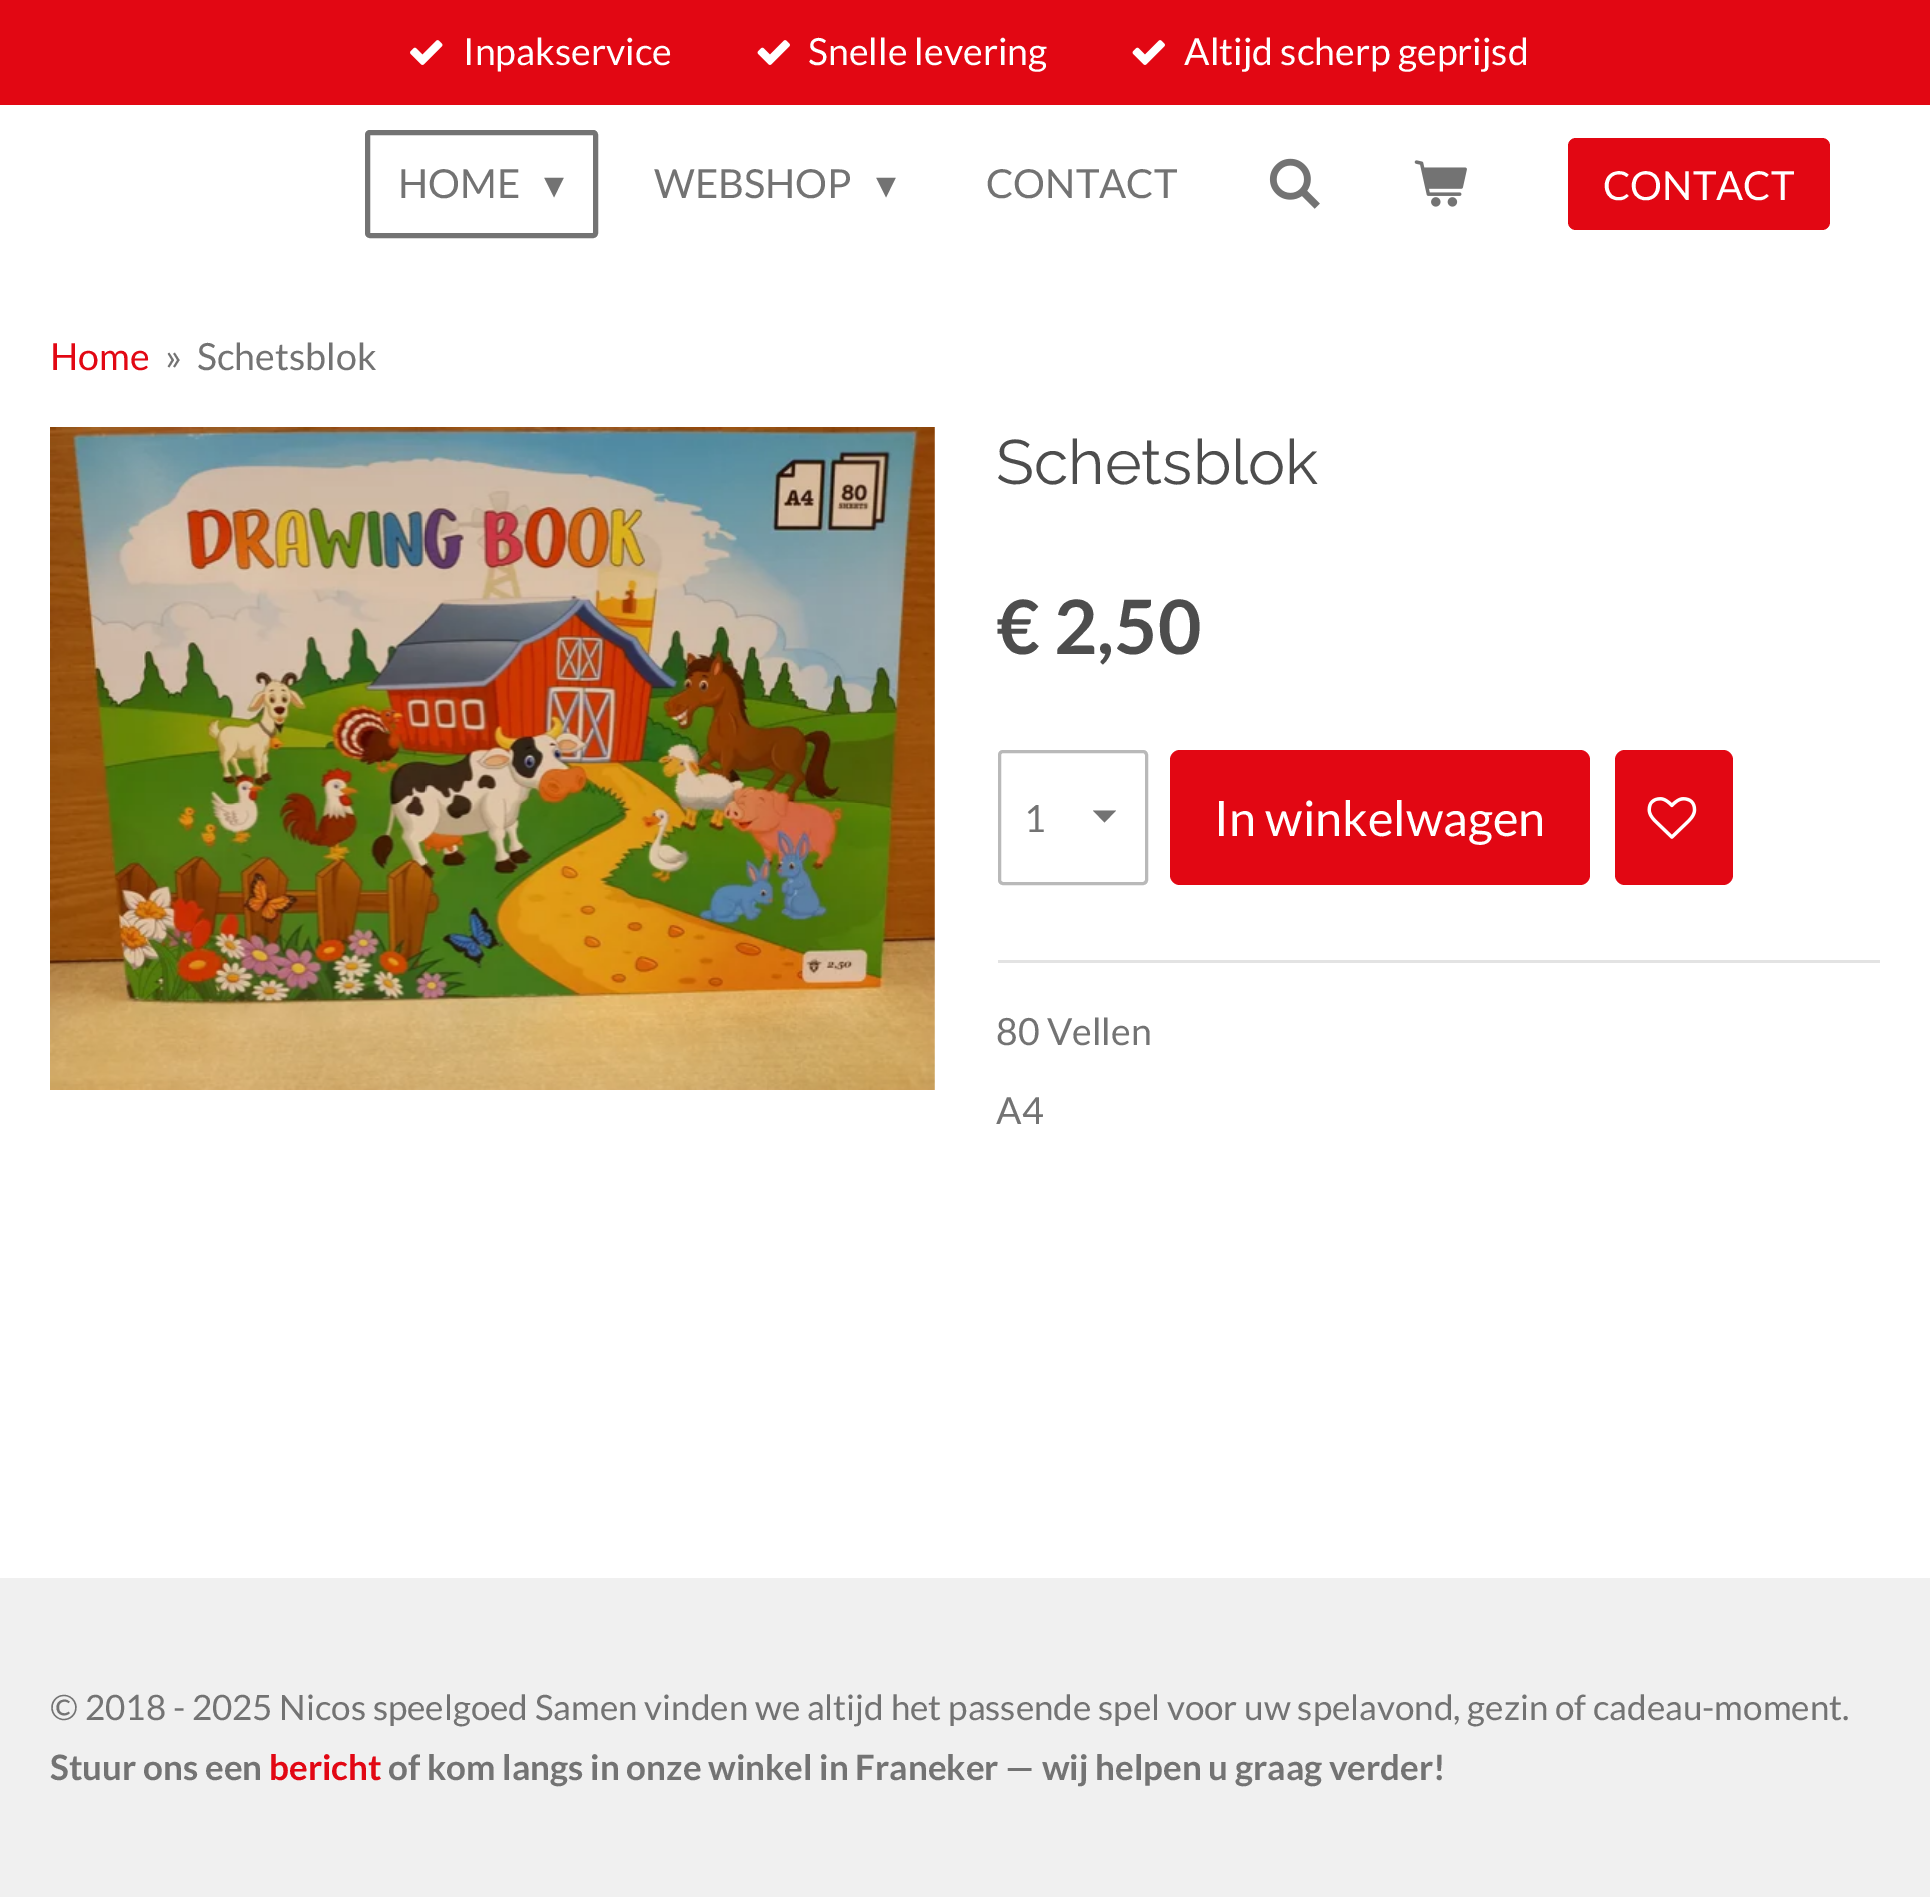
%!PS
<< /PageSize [1930 1897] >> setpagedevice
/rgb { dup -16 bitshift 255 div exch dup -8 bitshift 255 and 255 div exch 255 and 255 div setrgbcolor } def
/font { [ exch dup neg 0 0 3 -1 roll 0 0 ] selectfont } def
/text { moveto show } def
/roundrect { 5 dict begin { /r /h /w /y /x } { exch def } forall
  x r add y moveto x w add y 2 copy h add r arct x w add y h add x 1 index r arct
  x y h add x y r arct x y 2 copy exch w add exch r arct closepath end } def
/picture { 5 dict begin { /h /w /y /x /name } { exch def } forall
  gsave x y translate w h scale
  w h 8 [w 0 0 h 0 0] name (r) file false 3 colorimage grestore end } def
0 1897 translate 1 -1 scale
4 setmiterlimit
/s1 { /Lato-Regular 37.5 font 16#FFFFFF rgb } def
/s2 { /Lato-Regular 40 font 16#737373 rgb } def
/s3 { /DejaVuSans-Regular 40 font 16#737373 rgb } def
/s4 { /Lato-Regular 40 font 16#FFFFFF rgb } def
/s5 { /Lato-Regular 37.5 font 16#E20713 rgb } def
/s6 { /Lato-Regular 37.5 font 16#737373 rgb } def
/s7 { /Raleway-Regular 62.5 font 16#4D4D4D rgb } def
/s8 { /Lato-Bold 75 font 16#4D4D4D rgb } def
/s9 { /Lato-Regular 48.75 font 16#FFFFFF rgb } def
/s10 { /Lato-Regular 35 font 16#737373 rgb } def
/s11 { /Lato-Bold 35 font 16#737373 rgb } def
/s12 { /Lato-Bold 35 font 16#E20713 rgb } def
16#FFFFFF rgb
0 0 1930 1897 rectfill
16#E20713 rgb
0 0 1930 105 rectfill
(pic1.raw) 410 40 33 25 picture
s1
(Inpakservice) 463 65 text
(pic2.raw) 757 40 33 25 picture
(Snelle levering) 808 65 text
(pic2.raw) 1132 40 33 25 picture
(Altijd scherp geprijsd) 1184 65 text
16#737373 rgb
5 setlinewidth
367.5 132.5 228 103 2.5 roundrect stroke
s2
(HOME) 398 198 text
s3
(▾) 544 198 text
s2
(WEBSHOP) 654 198 text
s3
(▾) 876 198 text
s2
(CONTACT) 986 198 text
(pic3.raw) 1269 158 51 51 picture
(pic4.raw) 1414 160 53 47 picture
16#E20713 rgb
1568 138 262 92 8 roundrect fill
s4
(CONTACT) 1603 200 text
s5
(Home) 50 370 text
s6
(») 165 370 text
(Schetsblok) 197 370 text
(pic5.raw) 50 427 885 663 picture
s7
(Schetsblok) 996 484 text
s8
(€ 2,50) 996 654 text
16#737373 rgb
1104.5 822.5 moveto 1093 810.5 lineto 1116 810.5 lineto closepath fill
16#B9B9B9 rgb
3 setlinewidth
999.5 751.5 147 132 3.5 roundrect stroke
s6
(1) 1024 832 text
16#E20713 rgb
1170 750 420 135 10 roundrect fill
s9
(In winkelwagen) 1214 836 text
16#E20713 rgb
1615 750 118 135 10 roundrect fill
(pic6.raw) 1647 797 50 42 picture
16#E3E3E3 rgb
998 960 882 3 rectfill
s6
(80 Vellen) 996 1045 text
(A4) 996 1124 text
16#F0F0F0 rgb
0 1578 1930 319 rectfill
s10
(© 2018 - 2025 Nicos speelgoed Samen vinden we altijd het passende spel voor uw spelavond, gezin of cadeau-moment.) 50 1720 text
s11
(Stuur ons een) 50 1780 text
s12
(bericht) 269 1780 text
s11
(of kom langs in onze winkel in Franeker — wij helpen u graag verder!) 388 1780 text
showpage
